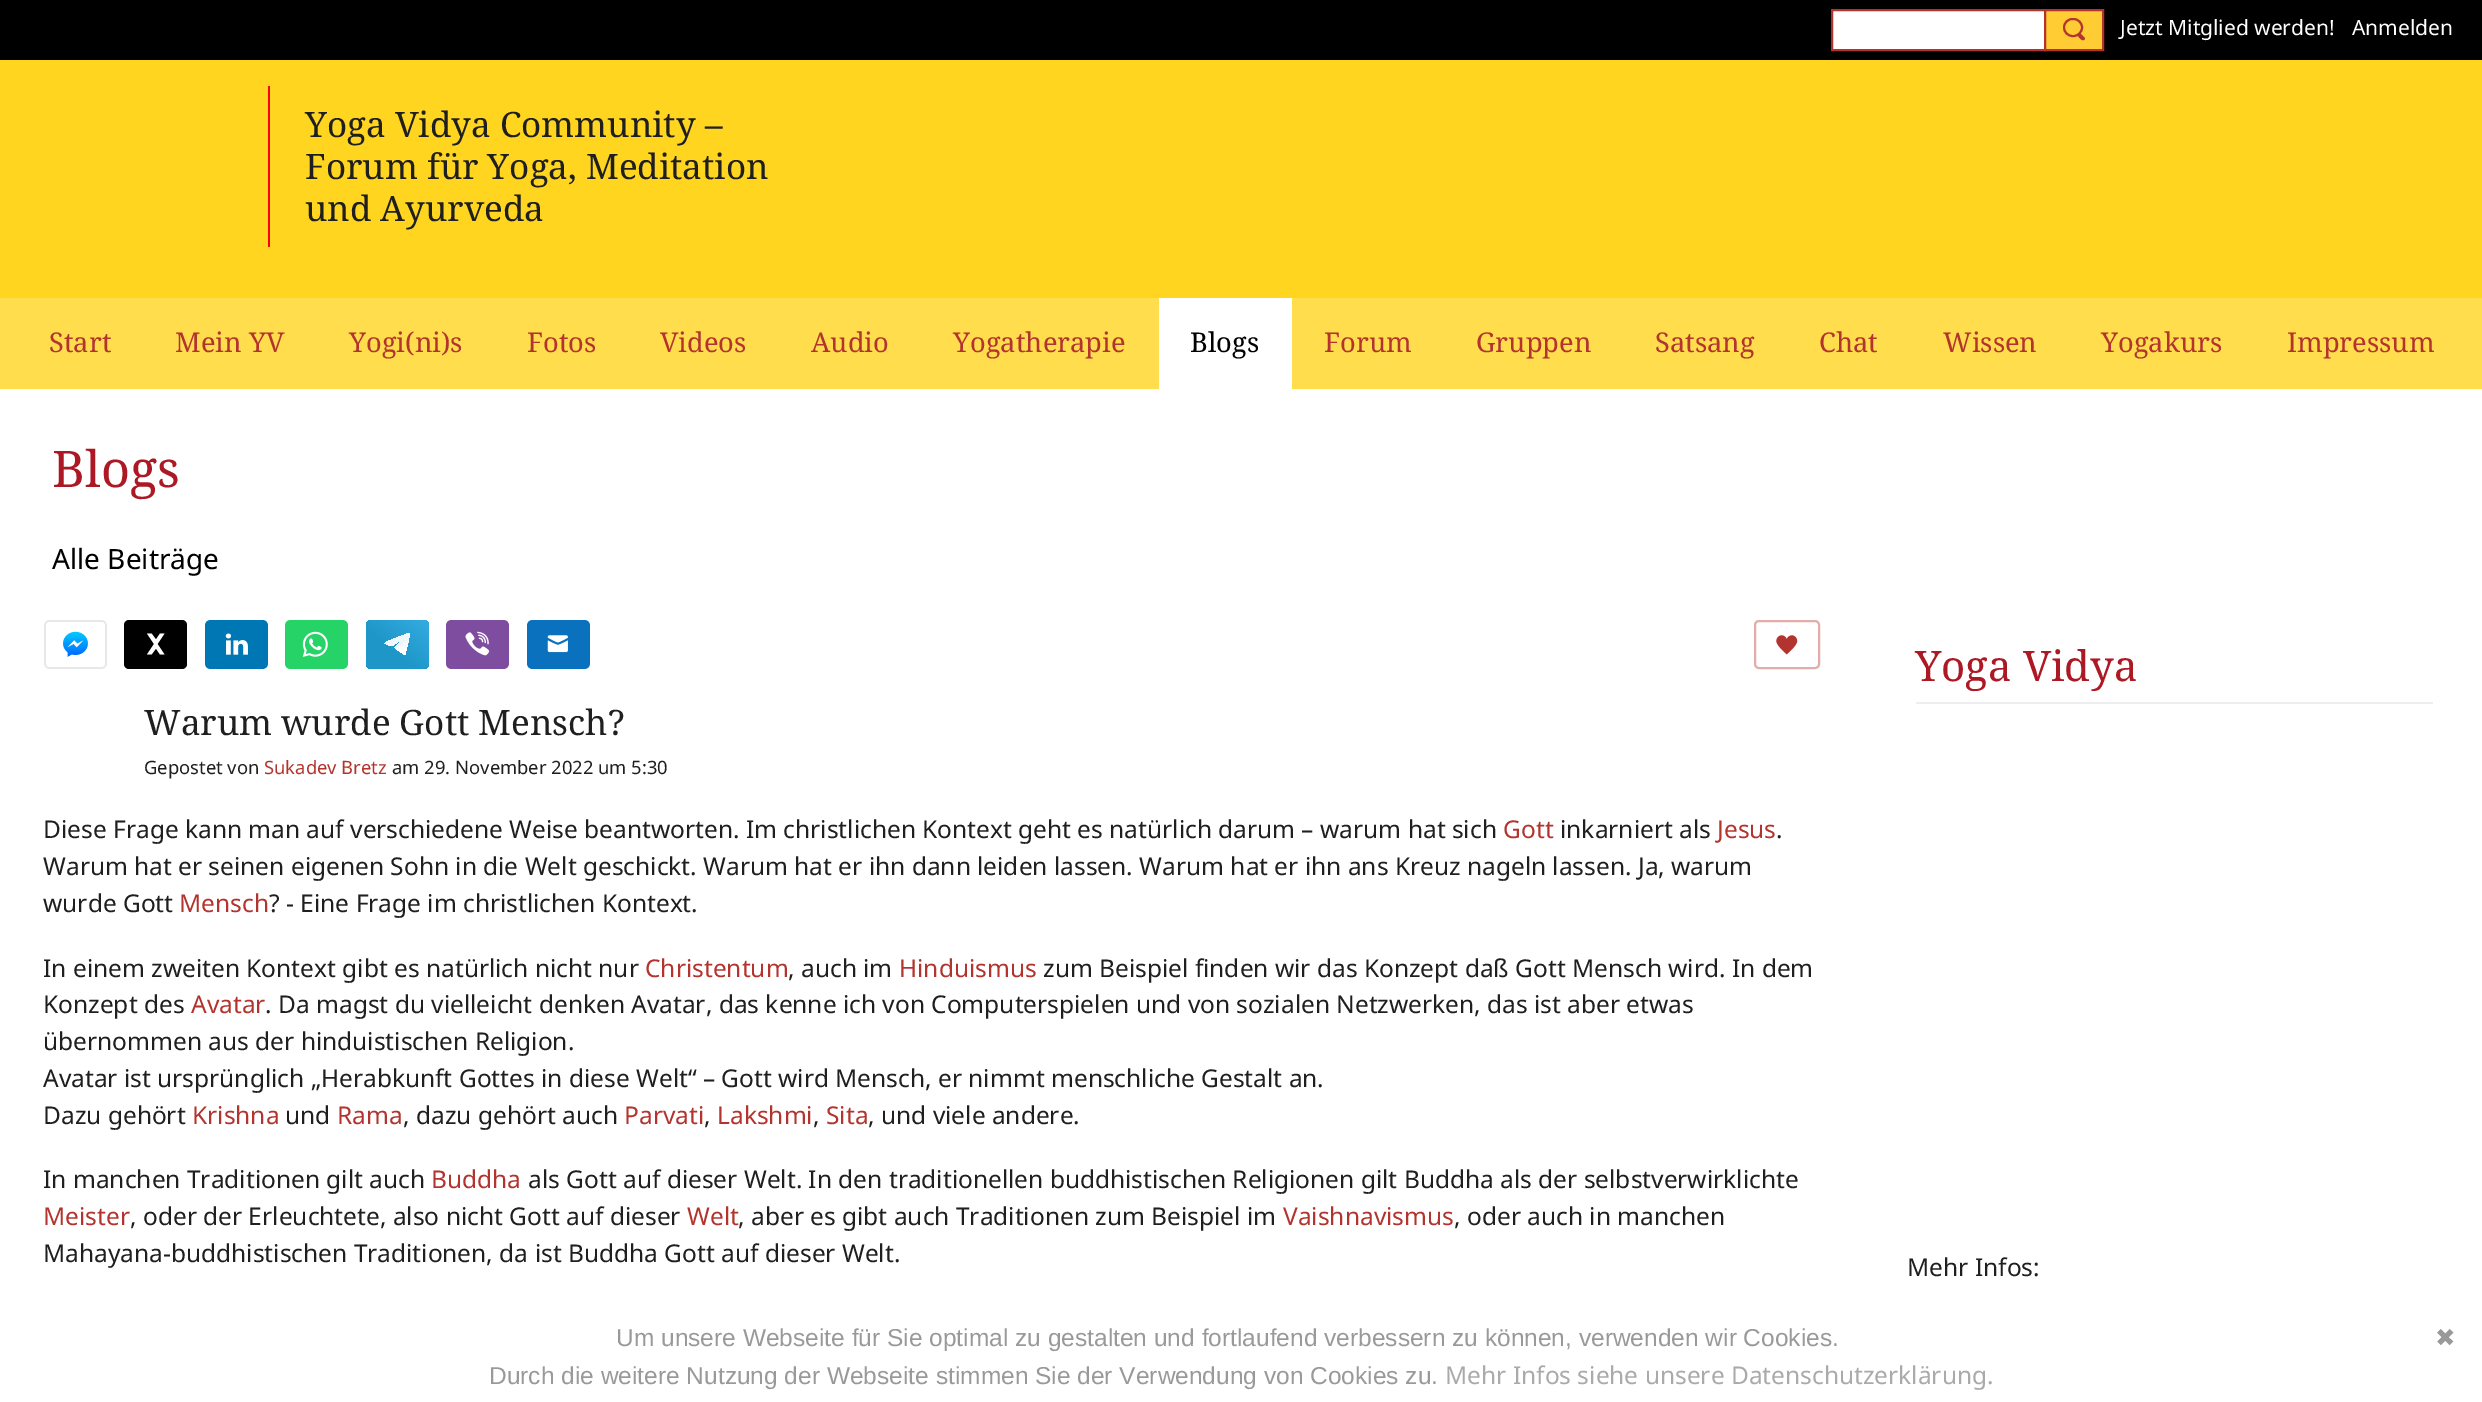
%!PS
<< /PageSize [2482 1402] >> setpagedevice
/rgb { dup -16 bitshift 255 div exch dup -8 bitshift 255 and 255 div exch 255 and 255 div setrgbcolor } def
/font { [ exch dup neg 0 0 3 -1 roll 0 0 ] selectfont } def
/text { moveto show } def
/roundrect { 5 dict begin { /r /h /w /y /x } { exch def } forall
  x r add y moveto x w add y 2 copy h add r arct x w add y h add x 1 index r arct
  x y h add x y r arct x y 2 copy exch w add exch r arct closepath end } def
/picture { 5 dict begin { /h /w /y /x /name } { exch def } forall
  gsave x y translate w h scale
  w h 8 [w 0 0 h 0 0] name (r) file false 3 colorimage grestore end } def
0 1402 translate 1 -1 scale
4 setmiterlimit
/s1 { /NotoSans-Regular 21 font 16#FFFFFF rgb } def
/s2 { /NotoSerif-Regular 35 font 16#1F1F1F rgb } def
/s3 { /NotoSerif-Regular 27.25 font 16#B3342E rgb } def
/s4 { /NotoSerif-Regular 27.25 font 16#000000 rgb } def
/s5 { /NotoSerif-Regular 50.5 font 16#AC1924 rgb } def
/s6 { /NotoSans-Regular 28 font 16#000000 rgb } def
/s7 { /NotoSans-Regular 18.4 font 16#1F1F1F rgb } def
/s8 { /NotoSans-Regular 18.4 font 16#B3342E rgb } def
/s9 { /NotoSans-Regular 24.5 font 16#1F1F1F rgb } def
/s10 { /NotoSans-Regular 24.5 font 16#B3342E rgb } def
/s11 { /NotoSerif-Regular 42 font 16#AC1924 rgb } def
/s12 { /LiberationSans-Regular 24.5 font 16#999999 rgb } def
/s13 { /DejaVuSans-Regular 24.5 font 16#999999 rgb } def
/s14 { /NotoSans-Regular 24.5 font 16#AAAAAA rgb } def
16#FFD520 rgb
0 0 2482 1402 rectfill
16#000000 rgb
0 0 2482 60 rectfill
16#FFFFFF rgb
1832 10 moveto 2045 10 lineto 2045 50 lineto 1832 50 lineto closepath gsave fill grestore
16#B3342E rgb
2 setlinewidth
stroke
16#FFCC33 rgb
2045 10 moveto 2103 10 lineto 2103 50 lineto 2045 50 lineto closepath gsave fill grestore
16#B3342E rgb
stroke
2064 19 18 17 8.5 roundrect stroke
2080.5 33.5 moveto 2084.5 37.5 lineto 2085 38 2085 39 2084.5 39.5 curveto 2082.5 42 2079 37.5 2078 36 curveto 2076.5 34.5 2079 32 2080.5 33.5 curveto closepath fill
s1
(Jetzt Mitglied werden!) 2120 35 text
(Anmelden) 2352 35 text
16#FF0000 rgb
268 86 2 161 rectfill
s2
(Yoga Vidya Community –) 305 137 text
(Forum für Yoga, Meditation) 305 179 text
(und Ayurveda) 305 221 text
16#FFDD4D rgb
0 298 2482 91 rectfill
s3
(Start) 49 352 text
(Mein YV) 175 352 text
(Yogi\(ni\)s) 349 352 text
(Fotos) 527 352 text
(Videos) 660 352 text
(Audio) 811 352 text
(Yogatherapie) 953 352 text
16#FFFFFF rgb
1159 298 133 91 rectfill
s4
(Blogs) 1190 352 text
s3
(Forum) 1324 352 text
(Gruppen) 1476 352 text
(Satsang) 1655 352 text
(Chat) 1819 352 text
(Wissen) 1943 352 text
(Yogakurs) 2101 352 text
(Impressum) 2287 352 text
16#FFFFFF rgb
0 389 2482 1013 rectfill
s5
(Blogs) 52 487 text
s6
(Alle Beiträge) 52 569 text
(pic1.raw) 44 620 63 49 picture
124 620 63 49 5 roundrect fill
16#FFFFFF rgb
147 633.5 moveto 154 644 lineto 147 654.5 lineto 151.5 654.5 lineto 156 648.5 lineto 160 654.5 lineto 164.5 654.5 lineto 157.5 644 lineto 164.5 633.5 lineto 160 633.5 lineto 156 639.5 lineto 151.5 633.5 lineto closepath eofill
(pic2.raw) 205 620 63 49 picture
(pic3.raw) 285 620 63 49 picture
gsave 366 620 63 49 5 roundrect clip newpath
<< /ShadingType 2 /ColorSpace /DeviceRGB /Coords [435 620 402 660] /Extend [true true] /Function << /FunctionType 2 /Domain [0 1] /C0 [0.216 0.682 0.886] /C1 [0.118 0.588 0.784] /N 1 >> >> shfill grestore
gsave 394.5 647.5 moveto 403.5 654 lineto 404.5 655 405.5 654.5 405.5 653 curveto 409.5 635.5 lineto 410 634 409 633 408 633.5 curveto 386 642 lineto 384.5 643 384.5 643.5 386 644 curveto 391.5 646 lineto 404.5 637.5 lineto 405 637 405.5 637.5 405 637.5 curveto clip newpath
<< /ShadingType 2 /ColorSpace /DeviceRGB /Coords [400 643 403 649] /Extend [true true] /Function << /FunctionType 2 /Domain [0 1] /C0 [0.937 0.969 0.988] /C1 [1 1 1] /N 1 >> >> shfill grestore
(pic4.raw) 446 620 63 49 picture
(pic5.raw) 527 620 63 49 picture
16#E1AEAB rgb
1755 621 64 47 4 roundrect stroke
(pic6.raw) 1776 635 22 20 picture
s2
(Warum wurde Gott Mensch?) 144 735 text
s7
(Gepostet von) 144 774 text
s8
(Sukadev Bretz) 264 774 text
s7
(am 29. November 2022 um 5:30) 392 774 text
s9
(Diese Frage kann man auf verschiedene Weise beantworten. Im christlichen Kontext geht es natürlich darum – warum hat sich) 43 838 text
s10
(Gott) 1503 838 text
s9
(inkarniert als) 1560 838 text
s10
(Jesus) 1717 838 text
s9
(.) 1776 838 text
(Warum hat er seinen eigenen Sohn in die Welt geschickt. Warum hat er ihn dann leiden lassen. Warum hat er ihn ans Kreuz nageln lassen. Ja, warum) 43 875 text
(wurde Gott) 43 912 text
s10
(Mensch) 179 912 text
s9
(? - Eine Frage im christlichen Kontext.) 269 912 text
(In einem zweiten Kontext gibt es natürlich nicht nur) 43 977 text
s10
(Christentum) 645 977 text
s9
(, auch im) 788 977 text
s10
(Hinduismus) 899 977 text
s9
(zum Beispiel finden wir das Konzept daß Gott Mensch wird. In dem) 1043 977 text
(Konzept des) 43 1013 text
s10
(Avatar) 191 1013 text
s9
(. Da magst du vielleicht denken Avatar, das kenne ich von Computerspielen und von sozialen Netzwerken, das ist aber etwas) 265 1013 text
(übernommen aus der hinduistischen Religion.) 43 1050 text
(Avatar ist ursprünglich „Herabkunft Gottes in diese Welt“ – Gott wird Mensch, er nimmt menschliche Gestalt an.) 43 1087 text
(Dazu gehört) 43 1124 text
s10
(Krishna) 192 1124 text
s9
(und) 285 1124 text
s10
(Rama) 337 1124 text
s9
(, dazu gehört auch) 403 1124 text
s10
(Parvati) 624 1124 text
s9
(,) 704 1124 text
s10
(Lakshmi) 717 1124 text
s9
(,) 813 1124 text
s10
(Sita) 826 1124 text
s9
(, und viele andere.) 868 1124 text
(In manchen Traditionen gilt auch) 43 1188 text
s10
(Buddha) 431 1188 text
s9
(als Gott auf dieser Welt. In den traditionellen buddhistischen Religionen gilt Buddha als der selbstverwirklichte) 528 1188 text
s10
(Meister) 43 1225 text
s9
(, oder der Erleuchtete, also nicht Gott auf dieser) 130 1225 text
s10
(Welt) 687 1225 text
s9
(, aber es gibt auch Traditionen zum Beispiel im) 738 1225 text
s10
(Vaishnavismus) 1283 1225 text
s9
(, oder auch in manchen) 1454 1225 text
(Mahayana-buddhistischen Traditionen, da ist Buddha Gott auf dieser Welt.) 43 1262 text
16#EEEEEE rgb
1916 702 517 2 rectfill
s11
(Yoga Vidya) 1915 681 text
s9
(Mehr Infos:) 1907 1276 text
s12
(Um unsere Webseite für Sie optimal zu gestalten und fortlaufend verbessern zu können, verwenden wir Cookies.) 616 1346 text
s13
(✖) 2435 1346 text
s12
(Durch die weitere Nutzung der Webseite stimmen Sie der Verwendung von Cookies zu.) 489 1384 text
s14
(Mehr Infos siehe unsere Datenschutzerklärung.) 1445 1384 text
showpage
